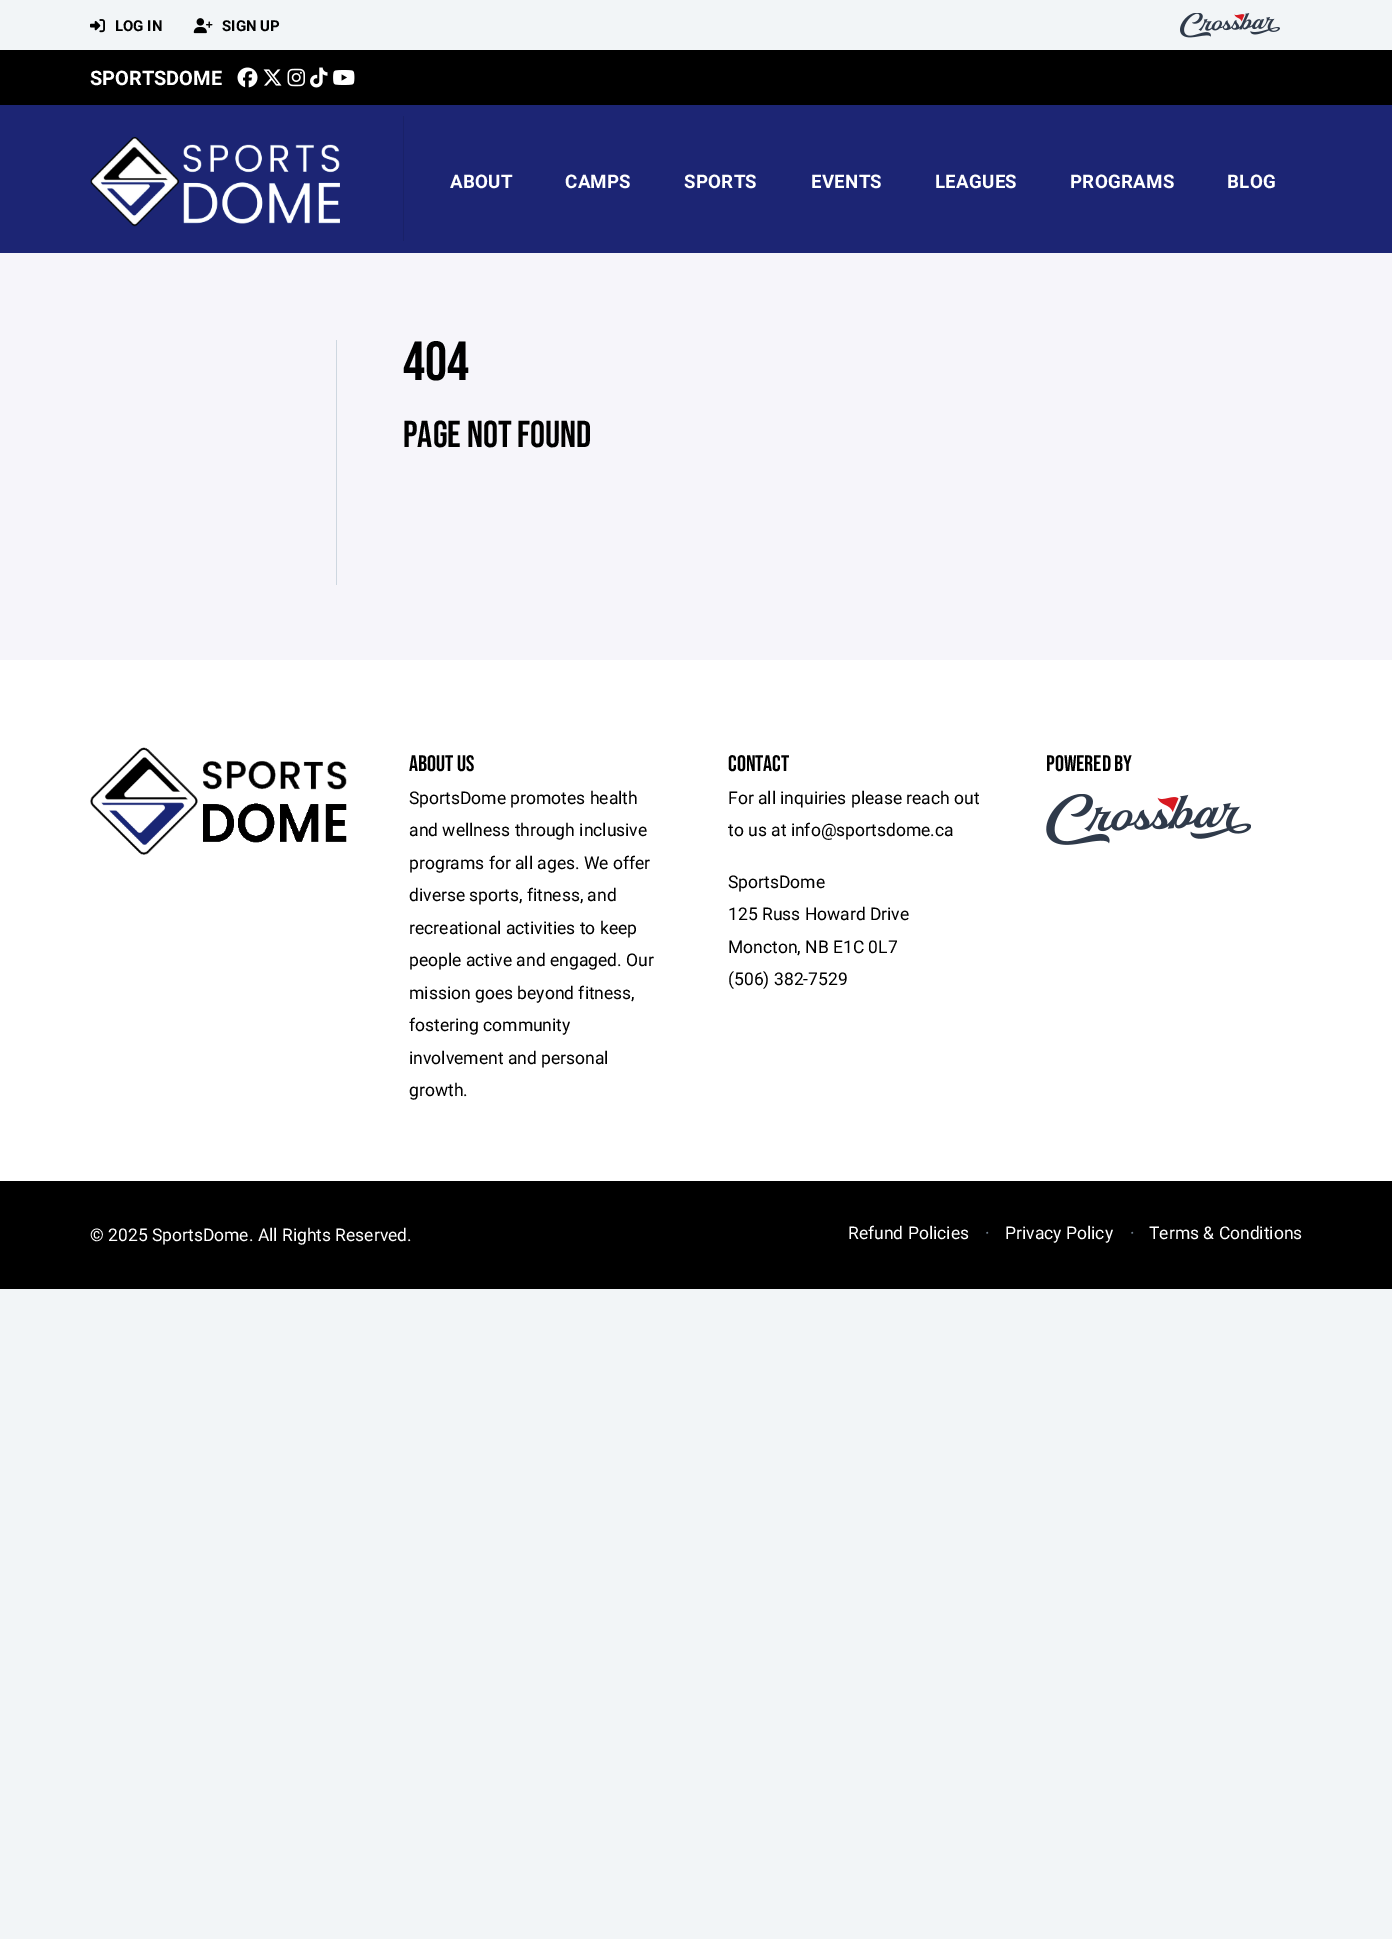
%!PS
<< /PageSize [1392 1939] >> setpagedevice
/rgb { dup -16 bitshift 255 div exch dup -8 bitshift 255 and 255 div exch 255 and 255 div setrgbcolor } def
/font { [ exch dup neg 0 0 3 -1 roll 0 0 ] selectfont } def
/text { moveto show } def
/picture { 5 dict begin { /h /w /y /x /name } { exch def } forall
  gsave x y translate w h scale
  w h 8 [w 0 0 h 0 0] name (r) file false 3 colorimage grestore end } def
0 1939 translate 1 -1 scale
4 setmiterlimit
/s1 { /Roboto-Bold 15 font 16#000000 rgb } def
/s2 { /Roboto-Bold 20 font 16#FFFFFF rgb } def
/s3 { /BebasNeue-Regular 55 font 16#000000 rgb } def
/s4 { /BebasNeue-Regular 37.5 font 16#000000 rgb } def
/s5 { /BebasNeue-Regular 22.5 font 16#000000 rgb } def
/s6 { /Roboto-Regular 17.5 font 16#000000 rgb } def
/s7 { /Roboto-Regular 17.5 font 16#FFFFFF rgb } def
/s8 { /Roboto-Regular 17.5 font 16#707E8C rgb } def
16#F2F5F7 rgb
0 0 1392 1939 rectfill
(pic1.raw) 90 19 15 14 picture
s1
(LOG IN) 115 31 text
(pic2.raw) 193 18 20 16 picture
(SIGN UP) 222 31 text
(pic3.raw) 1180 13 100 25 picture
0 50 1392 55 rectfill
s2
(SPORTSDOME) 90 85 text
(pic4.raw) 237 67 21 21 picture
(pic5.raw) 263 69 19 17 picture
(pic6.raw) 287 68 18 19 picture
(pic7.raw) 310 67 18 21 picture
(pic8.raw) 333 70 22 15 picture
16#1C2574 rgb
0 105 1392 148 rectfill
16#192168 rgb
403 116 1 125 rectfill
(pic9.raw) 90 136 250 91 picture
/Roboto-Bold 18.75 font
16#FFFFFF rgb
450 188 moveto 0.25 0 (ABOUT) ashow
565 188 moveto 0.25 0 (CAMPS) ashow
684 188 moveto 0.25 0 (SPORTS) ashow
811 188 moveto 0.25 0 (EVENTS) ashow
935 188 moveto 0.25 0 (LEAGUES) ashow
1070 188 moveto 0.25 0 (PROGRAMS) ashow
1227 188 moveto 0.25 0 (BLOG) ashow
16#F6F5FA rgb
0 253 1392 407 rectfill
16#CED7E0 rgb
336 340 1 245 rectfill
s3
(404) 403 380 text
s4
(PAGE NOT FOUND) 403 447 text
16#FFFFFF rgb
0 660 1392 521 rectfill
(pic10.raw) 90 747 257 108 picture
s5
(ABOUT US) 409 771 text
s6
(SportsDome promotes health) 409 804 text
(and wellness through inclusive) 409 836 text
(programs for all ages. We offer) 409 869 text
(diverse sports, fitness, and) 409 901 text
(recreational activities to keep) 409 934 text
(people active and engaged. Our) 409 966 text
(mission goes beyond fitness,) 409 999 text
(fostering community) 409 1031 text
(involvement and personal) 409 1064 text
(growth.) 409 1096 text
s5
(CONTACT) 728 771 text
s6
(For all inquiries please reach out) 728 804 text
(to us at info@sportsdome.ca) 728 836 text
(SportsDome) 728 888 text
(125 Russ Howard Drive) 728 920 text
(Moncton, NB E1C 0L7) 728 953 text
(\(506\) 382-7529) 728 985 text
s5
(POWERED BY) 1046 771 text
(pic11.raw) 1046 794 205 51 picture
0 1181 1392 108 rectfill
s7
(© 2025 SportsDome. All Rights Reserved.) 90 1241 text
(Refund Policies) 848 1239 text
s8
(·) 985 1239 text
s7
(Privacy Policy) 1005 1239 text
s8
(·) 1130 1239 text
s7
(Terms & Conditions) 1149 1239 text
showpage
